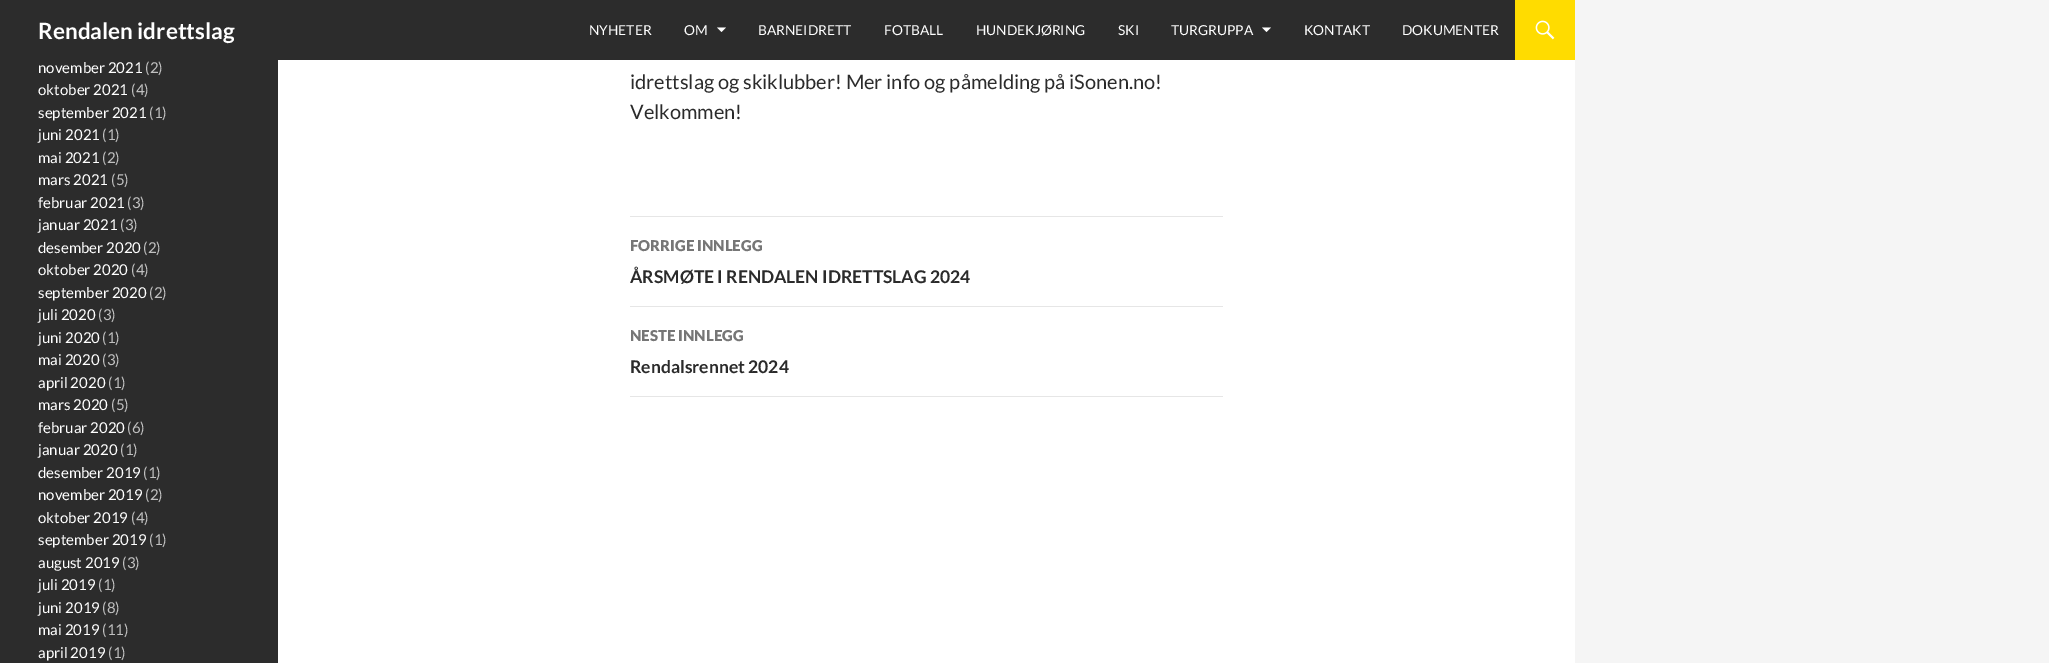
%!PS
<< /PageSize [2049 663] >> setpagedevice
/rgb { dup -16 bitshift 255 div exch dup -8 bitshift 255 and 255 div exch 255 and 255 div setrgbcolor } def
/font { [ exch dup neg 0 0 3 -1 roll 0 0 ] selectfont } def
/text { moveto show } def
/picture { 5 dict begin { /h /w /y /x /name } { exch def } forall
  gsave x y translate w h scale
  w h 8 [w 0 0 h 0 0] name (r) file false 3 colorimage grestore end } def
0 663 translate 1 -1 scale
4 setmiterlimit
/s1 { /Lato-Bold 22.5 font 16#FFFFFF rgb } def
/s2 { /Lato-Regular 13.75 font 16#FFFFFF rgb } def
/s3 { /Lato-Regular 15 font 16#FFFFFF rgb } def
/s4 { /Lato-Regular 15 font 16#C0C0C0 rgb } def
/s5 { /Lato-Regular 20 font 16#2B2B2B rgb } def
/s6 { /Lato-Black 15 font 16#767676 rgb } def
/s7 { /Lato-Bold 17.5 font 16#2B2B2B rgb } def
16#F5F5F5 rgb
0 0 2049 663 rectfill
16#FFFFFF rgb
278 60 1297 603 rectfill
16#2C2C2C rgb
0 0 1515 60 rectfill
s1
(Rendalen idrettslag) 38 39 text
s2
(NYHETER) 589 35 text
(OM) 684 35 text
717 27.5 moveto 721.5 32 lineto 726 27.5 lineto closepath fill
(BARNEIDRETT) 758 35 text
(FOTBALL) 884 35 text
(HUNDEKJØRING) 976 35 text
(SKI) 1118 35 text
(TURGRUPPA) 1171 35 text
1262 27.5 moveto 1266.5 32 lineto 1271 27.5 lineto closepath fill
(KONTAKT) 1304 35 text
(DOKUMENTER) 1402 35 text
16#FFDC00 rgb
1515 0 60 60 rectfill
(pic1.raw) 1535 20 20 20 picture
16#2C2C2C rgb
0 60 278 603 rectfill
s3
(november 2021) 38 73 text
s4
(\(2\)) 145 73 text
s3
(oktober 2021) 38 95 text
s4
(\(4\)) 131 95 text
s3
(september 2021) 38 118 text
s4
(\(1\)) 149 118 text
s3
(juni 2021) 38 140 text
s4
(\(1\)) 102 140 text
s3
(mai 2021) 38 163 text
s4
(\(2\)) 102 163 text
s3
(mars 2021) 38 185 text
s4
(\(5\)) 111 185 text
s3
(februar 2021) 38 208 text
s4
(\(3\)) 127 208 text
s3
(januar 2021) 38 230 text
s4
(\(3\)) 120 230 text
s3
(desember 2020) 38 253 text
s4
(\(2\)) 143 253 text
s3
(oktober 2020) 38 275 text
s4
(\(4\)) 131 275 text
s3
(september 2020) 38 298 text
s4
(\(2\)) 149 298 text
s3
(juli 2020) 38 320 text
s4
(\(3\)) 98 320 text
s3
(juni 2020) 38 343 text
s4
(\(1\)) 102 343 text
s3
(mai 2020) 38 365 text
s4
(\(3\)) 102 365 text
s3
(april 2020) 38 388 text
s4
(\(1\)) 108 388 text
s3
(mars 2020) 38 410 text
s4
(\(5\)) 111 410 text
s3
(februar 2020) 38 433 text
s4
(\(6\)) 127 433 text
s3
(januar 2020) 38 455 text
s4
(\(1\)) 120 455 text
s3
(desember 2019) 38 478 text
s4
(\(1\)) 143 478 text
s3
(november 2019) 38 500 text
s4
(\(2\)) 145 500 text
s3
(oktober 2019) 38 523 text
s4
(\(4\)) 131 523 text
s3
(september 2019) 38 545 text
s4
(\(1\)) 149 545 text
s3
(august 2019) 38 568 text
s4
(\(3\)) 122 568 text
s3
(juli 2019) 38 590 text
s4
(\(1\)) 98 590 text
s3
(juni 2019) 38 613 text
s4
(\(8\)) 102 613 text
s3
(mai 2019) 38 635 text
s4
(\(11\)) 102 635 text
s3
(april 2019) 38 658 text
s4
(\(1\)) 108 658 text
s5
(idrettslag og skiklubber! Mer info og påmelding på iSonen.no!) 630 89 text
(Velkommen!) 630 119 text
16#E6E6E6 rgb
630 216 593 1 rectfill
630 306 593 1 rectfill
s6
(FORRIGE INNLEGG) 630 251 text
s7
(ÅRSMØTE I RENDALEN IDRETTSLAG 2024) 630 283 text
16#E6E6E6 rgb
630 396 593 1 rectfill
s6
(NESTE INNLEGG) 630 341 text
s7
(Rendalsrennet 2024) 630 373 text
showpage
